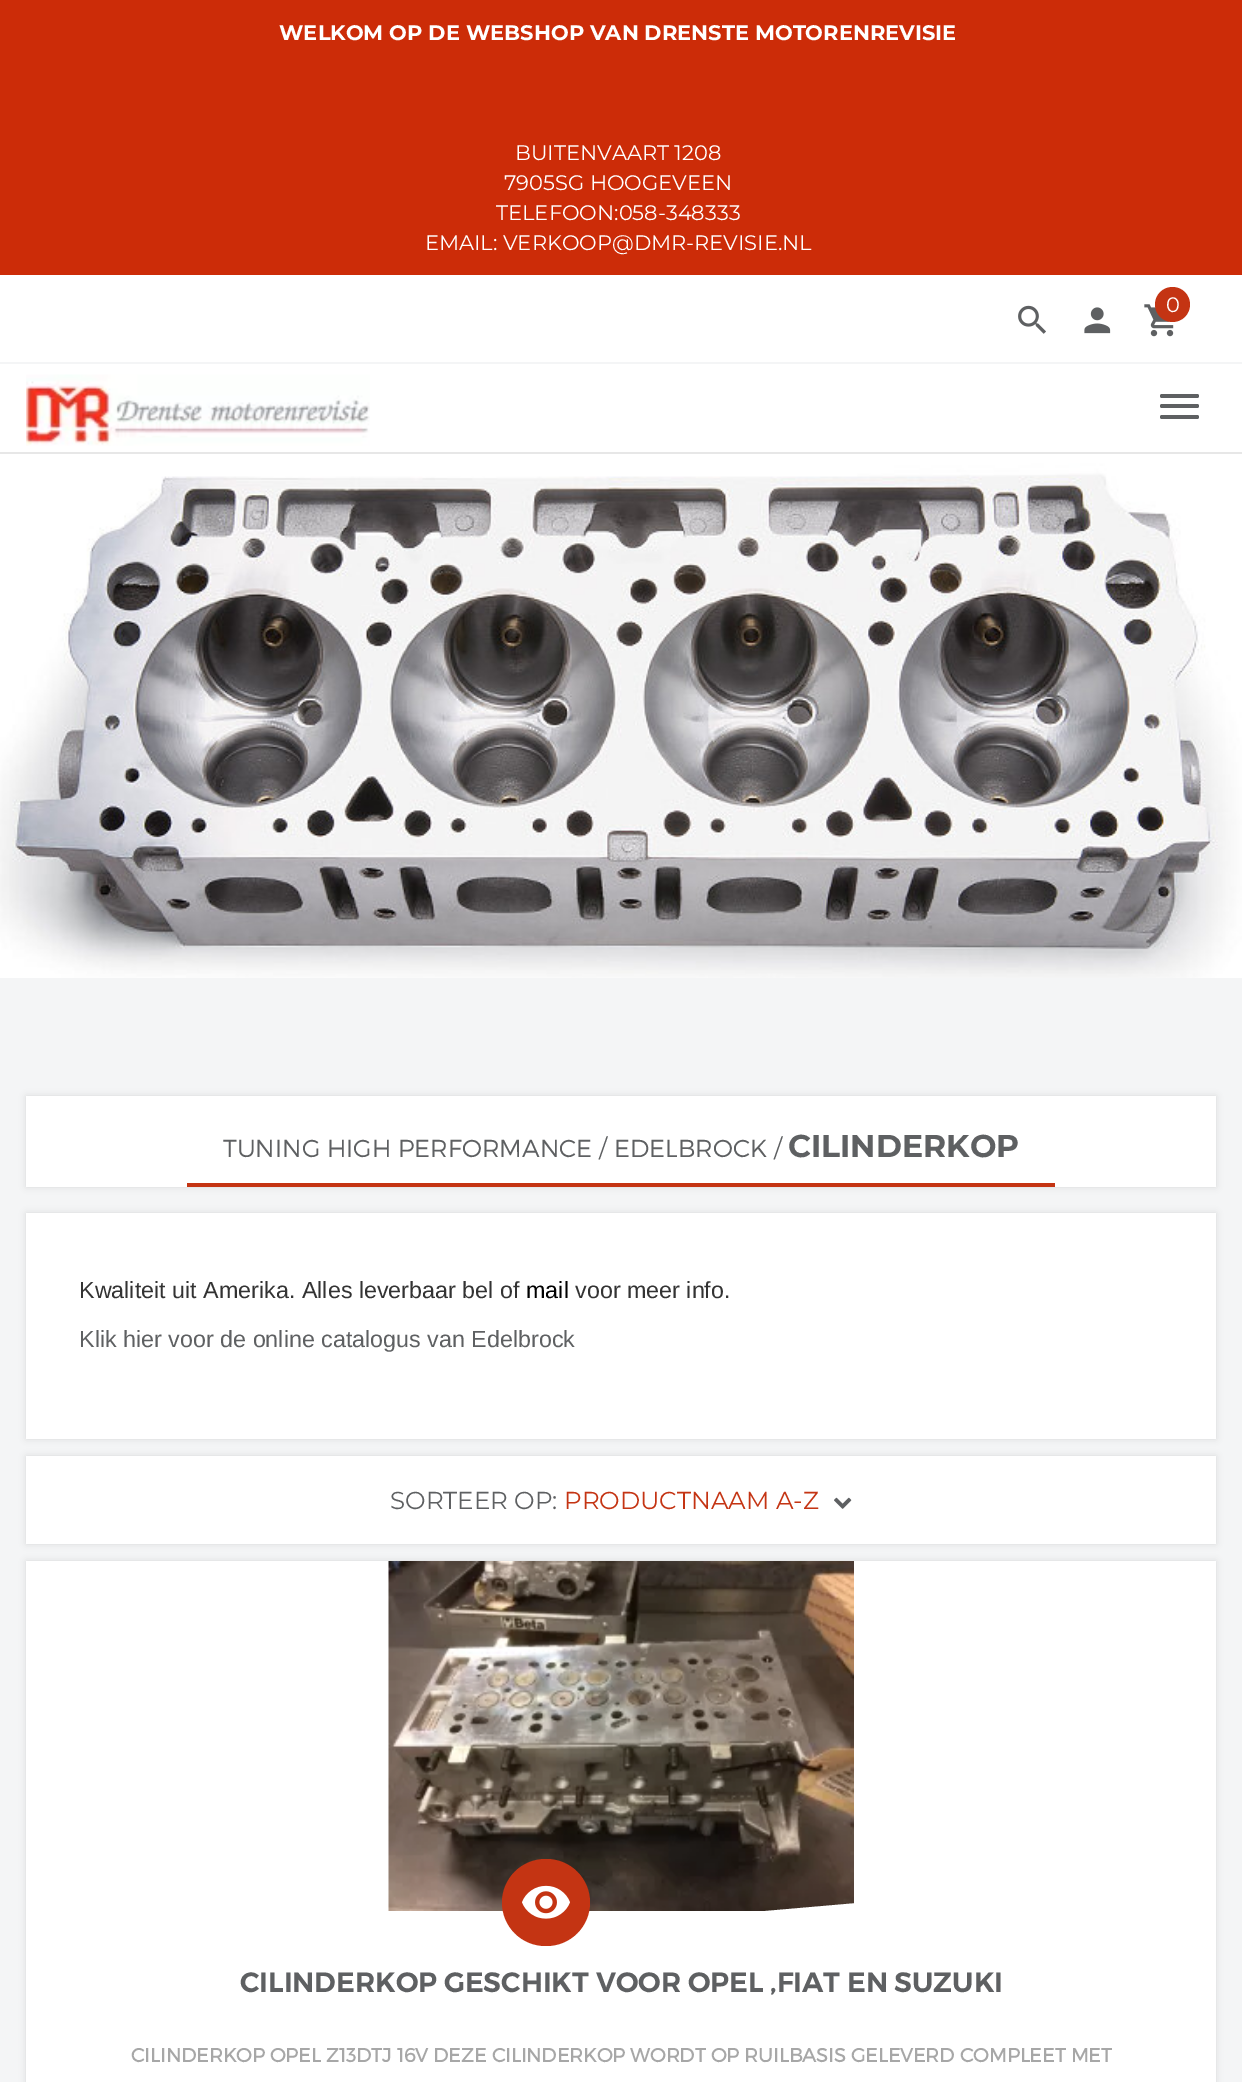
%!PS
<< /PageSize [1242 2082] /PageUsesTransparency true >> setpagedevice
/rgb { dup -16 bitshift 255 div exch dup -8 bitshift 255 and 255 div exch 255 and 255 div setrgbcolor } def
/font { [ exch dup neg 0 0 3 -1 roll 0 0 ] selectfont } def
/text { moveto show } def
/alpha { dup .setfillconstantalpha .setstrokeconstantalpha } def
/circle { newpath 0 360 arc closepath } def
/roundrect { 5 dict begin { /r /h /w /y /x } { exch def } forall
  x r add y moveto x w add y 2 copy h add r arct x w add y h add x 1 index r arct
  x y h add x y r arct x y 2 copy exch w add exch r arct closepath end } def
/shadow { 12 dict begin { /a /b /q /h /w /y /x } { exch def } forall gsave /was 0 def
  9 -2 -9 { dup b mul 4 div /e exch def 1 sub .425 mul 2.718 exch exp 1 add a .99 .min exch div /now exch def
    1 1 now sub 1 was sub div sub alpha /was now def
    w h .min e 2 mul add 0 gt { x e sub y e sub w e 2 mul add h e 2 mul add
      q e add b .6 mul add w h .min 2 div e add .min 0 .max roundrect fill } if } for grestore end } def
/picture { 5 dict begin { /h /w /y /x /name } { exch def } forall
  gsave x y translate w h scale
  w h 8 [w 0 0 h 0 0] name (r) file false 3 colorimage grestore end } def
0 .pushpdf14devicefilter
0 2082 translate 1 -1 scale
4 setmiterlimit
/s1 { /Montserrat-Bold 21 font 16#FFFFFF rgb } def
/s2 { /Montserrat-Regular 21 font 16#FFFFFF rgb } def
/s3 { /Montserrat-Light 24.5 font 16#5E6062 rgb } def
/s4 { /Montserrat-Regular 24.5 font 16#5E6062 rgb } def
/s5 { /Montserrat-Bold 31.5 font 16#5E6062 rgb } def
/s6 { /LiberationSans-Regular 23.3 font 16#333333 rgb } def
/s7 { /LiberationSans-Regular 23.3 font 16#000000 rgb } def
/s8 { /LiberationSans-Regular 23.3 font 16#5E6062 rgb } def
/s9 { /Montserrat-Regular 24.5 font 16#C43413 rgb } def
/s10 { /Montserrat-SemiBold 28 font 16#5E6062 rgb } def
/s11 { /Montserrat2-Bold 19.25 font 16#A7A7A7 rgb } def
16#F4F5F6 rgb
0 0 1242 2082 rectfill
16#FFFFFF rgb
0 275 1242 177 rectfill
16#E7E7E7 rgb
0 452 1242 2 rectfill
16#CC2C08 rgb
0 0 1242 275 rectfill
s1
(WELKOM OP DE WEBSHOP VAN DRENSTE MOTORENREVISIE) 279 40 text
s2
(BUITENVAART 1208) 515 160 text
(7905SG HOOGEVEEN) 504 190 text
(TELEFOON:058-348333) 496 220 text
(EMAIL: VERKOOP@DMR-REVISIE.NL) 425 250 text
(pic1.raw) 1018 305 28 29 picture
(pic2.raw) 1084 307 27 27 picture
(pic3.raw) 1144 304 30 33 picture
16#C43413 rgb
1172.5 304.5 17.5 circle fill
s2
(0) 1166 312 text
16#F4F5F6 rgb
0 362 1242 2 rectfill
(pic4.raw) 26 374 344 72 picture
16#5E6062 rgb
1160 394 39 4 2 roundrect fill
1160 404 39 4 2 roundrect fill
1160 415 39 4 2 roundrect fill
(pic5.raw) 0 454 1242 524 picture
16#FFFFFF rgb
26 1096 1190 91 rectfill
gsave
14 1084 moveto 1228 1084 lineto 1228 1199 lineto 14 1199 lineto closepath 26 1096 moveto 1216 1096 lineto 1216 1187 lineto 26 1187 lineto closepath eoclip newpath
16#BDBDBD rgb
26 1096 1190 91 0 3.5 0.5 shadow
grestore
16#C43413 rgb
187 1183 868 4 rectfill
s3
(TUNING HIGH PERFORMANCE) 223 1157 text
s4
(/) 599 1157 text
s3
(EDELBROCK) 614 1157 text
s4
(/) 774 1157 text
s5
(CILINDERKOP) 788 1157 text
16#BDBDBD rgb
26 1213 1190 226 0 3.5 0.5 shadow
16#FFFFFF rgb
26 1213 1190 226 rectfill
s6
(Kwaliteit uit Amerika. Alles leverbaar bel of) 79 1298 text
s7
(mail) 526 1298 text
s6
(voor meer info.) 575 1298 text
s8
(Klik hier voor de online catalogus van Edelbrock) 79 1347 text
16#BDBDBD rgb
26 1456 1190 88 0 3.5 0.5 shadow
16#FFFFFF rgb
26 1456 1190 88 rectfill
s4
(SORTEER OP:) 390 1509 text
s9
(PRODUCTNAAM A-Z) 564 1509 text
(pic6.raw) 834 1497 18 12 picture
16#BDBDBD rgb
26 1561 1190 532 0 3.5 0.5 shadow
16#FFFFFF rgb
26 1561 1190 521 rectfill
(pic7.raw) 388 1561 466 350 picture
gsave
26 1873 1190 52 rectclip
1216 1872 moveto 1216 1925 lineto 604 1925 lineto closepath fill
grestore
16#C43413 rgb
502 1859 88 87 43.5 roundrect fill
(pic8.raw) 522 1885 48 34 picture
s10
(CILINDERKOP GESCHIKT VOOR OPEL ,FIAT EN SUZUKI) 240 1992 text
s11
(CILINDERKOP OPEL Z13DTJ 16V DEZE CILINDERKOP WORDT OP RUILBASIS GELEVERD COMPLEET MET) 131 2062 text
.poppdf14devicefilter showpage
